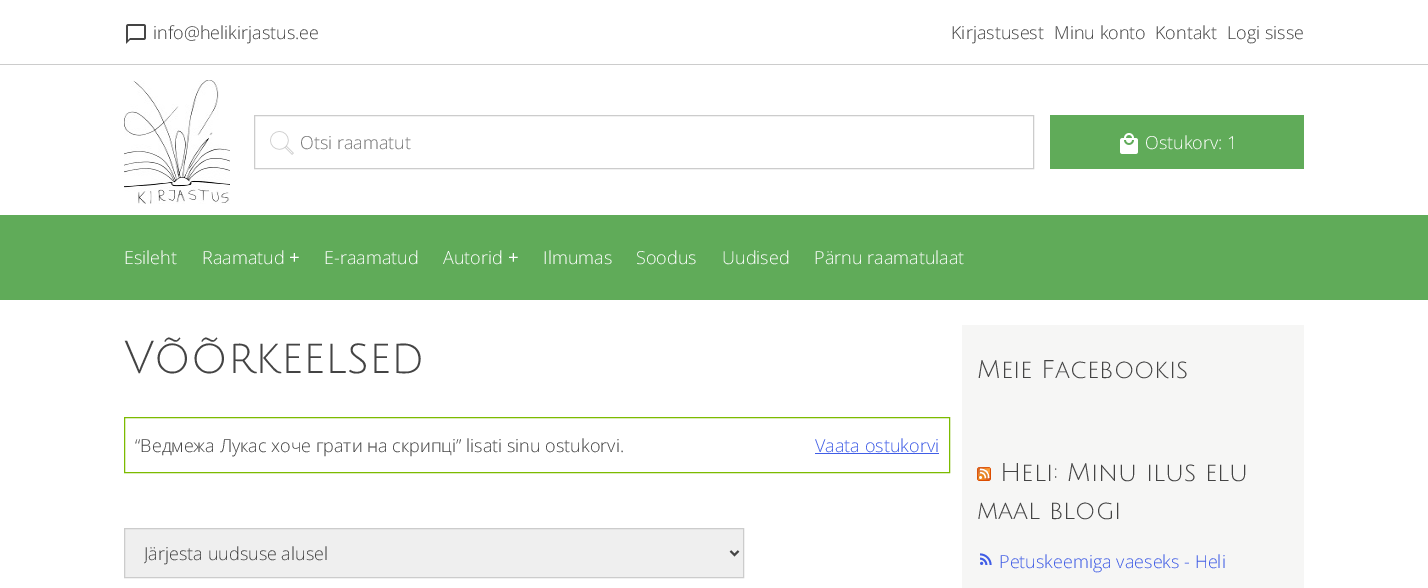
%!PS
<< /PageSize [1428 588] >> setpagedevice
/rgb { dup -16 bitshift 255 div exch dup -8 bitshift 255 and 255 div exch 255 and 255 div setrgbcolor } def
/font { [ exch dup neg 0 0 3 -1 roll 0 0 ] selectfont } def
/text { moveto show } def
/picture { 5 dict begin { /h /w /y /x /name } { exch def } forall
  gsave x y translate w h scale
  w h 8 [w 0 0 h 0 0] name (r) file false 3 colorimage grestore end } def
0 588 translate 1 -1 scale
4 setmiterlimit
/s1 { /OpenSans-Light 18 font 16#444444 rgb } def
/s2 { /OpenSans-Light 18 font 16#757575 rgb } def
/s3 { /OpenSans-Light 18 font 16#FFFFFF rgb } def
/s4 { /OpenSans-Bold 18 font 16#FFFFFF rgb } def
/s5 { /JuliusSansOne-Regular 45 font 16#444444 rgb } def
/s6 { /OpenSans-Light 18 font 16#405DE6 rgb } def
/s7 { /JuliusSansOne-Regular 25 font 16#444444 rgb } def
16#FFFFFF rgb
0 0 1428 588 rectfill
16#CCCCCC rgb
0 64 1428 1 rectfill
(pic1.raw) 126 24 20 20 picture
s1
(info@helikirjastus.ee) 153 39 text
(Kirjastusest) 951 39 text
(Minu konto) 1054 39 text
(Kontakt) 1155 39 text
(Logi sisse) 1227 39 text
(pic2.raw) 124 80 106 124 picture
(pic3.raw) 270 131 24 24 picture
16#CCCCCC rgb
254.5 115.5 779 53 rectstroke
s2
(Otsi raamatut) 300 149 text
16#60AB59 rgb
1050 115 254 54 rectfill
(pic4.raw) 1120 133 18 21 picture
s3
(Ostukorv: 1) 1145 149 text
16#60AB59 rgb
0 215 1428 85 rectfill
s3
(Esileht) 124 264 text
(Raamatud) 202 264 text
s4
(+) 289 264 text
s3
(E-raamatud) 324 264 text
(Autorid) 443 264 text
s4
(+) 508 264 text
s3
(Ilmumas) 543 264 text
(Soodus) 636 264 text
(Uudised) 722 264 text
(Pärnu raamatulaat) 814 264 text
s5
(Võõrkeelsed) 124 373 text
16#7CBB00 rgb
124.5 417.5 825 55 rectstroke
s1
(“Ведмежа Лукас хоче грати на скрипці” lisati sinu ostukorvi.) 135 452 text
s6
(Vaata ostukorvi) 815 452 text
815 453 124 1 rectfill
16#EFEFEF rgb
124.5 528.5 moveto 743.5 528.5 lineto 743.5 577.5 lineto 124.5 577.5 lineto closepath gsave fill grestore
16#CCCCCC rgb
stroke
16#444444 rgb
2 setlinewidth
730.5 551 moveto 734.5 555 lineto 738.5 551 lineto stroke
gsave
144 540 583 26 rectclip
(Järjesta uudsuse alusel) 144 560 text
grestore
16#F6F6F5 rgb
962 325 342 263 rectfill
s7
(Meie Facebookis) 977 378 text
(pic5.raw) 977 467 14 14 picture
(Heli: Minu ilus elu) 1000 481 text
(maal blogi) 977 519 text
(pic6.raw) 980 553 12 12 picture
s6
(Petuskeemiga vaeseks - Heli) 999 568 text
showpage
